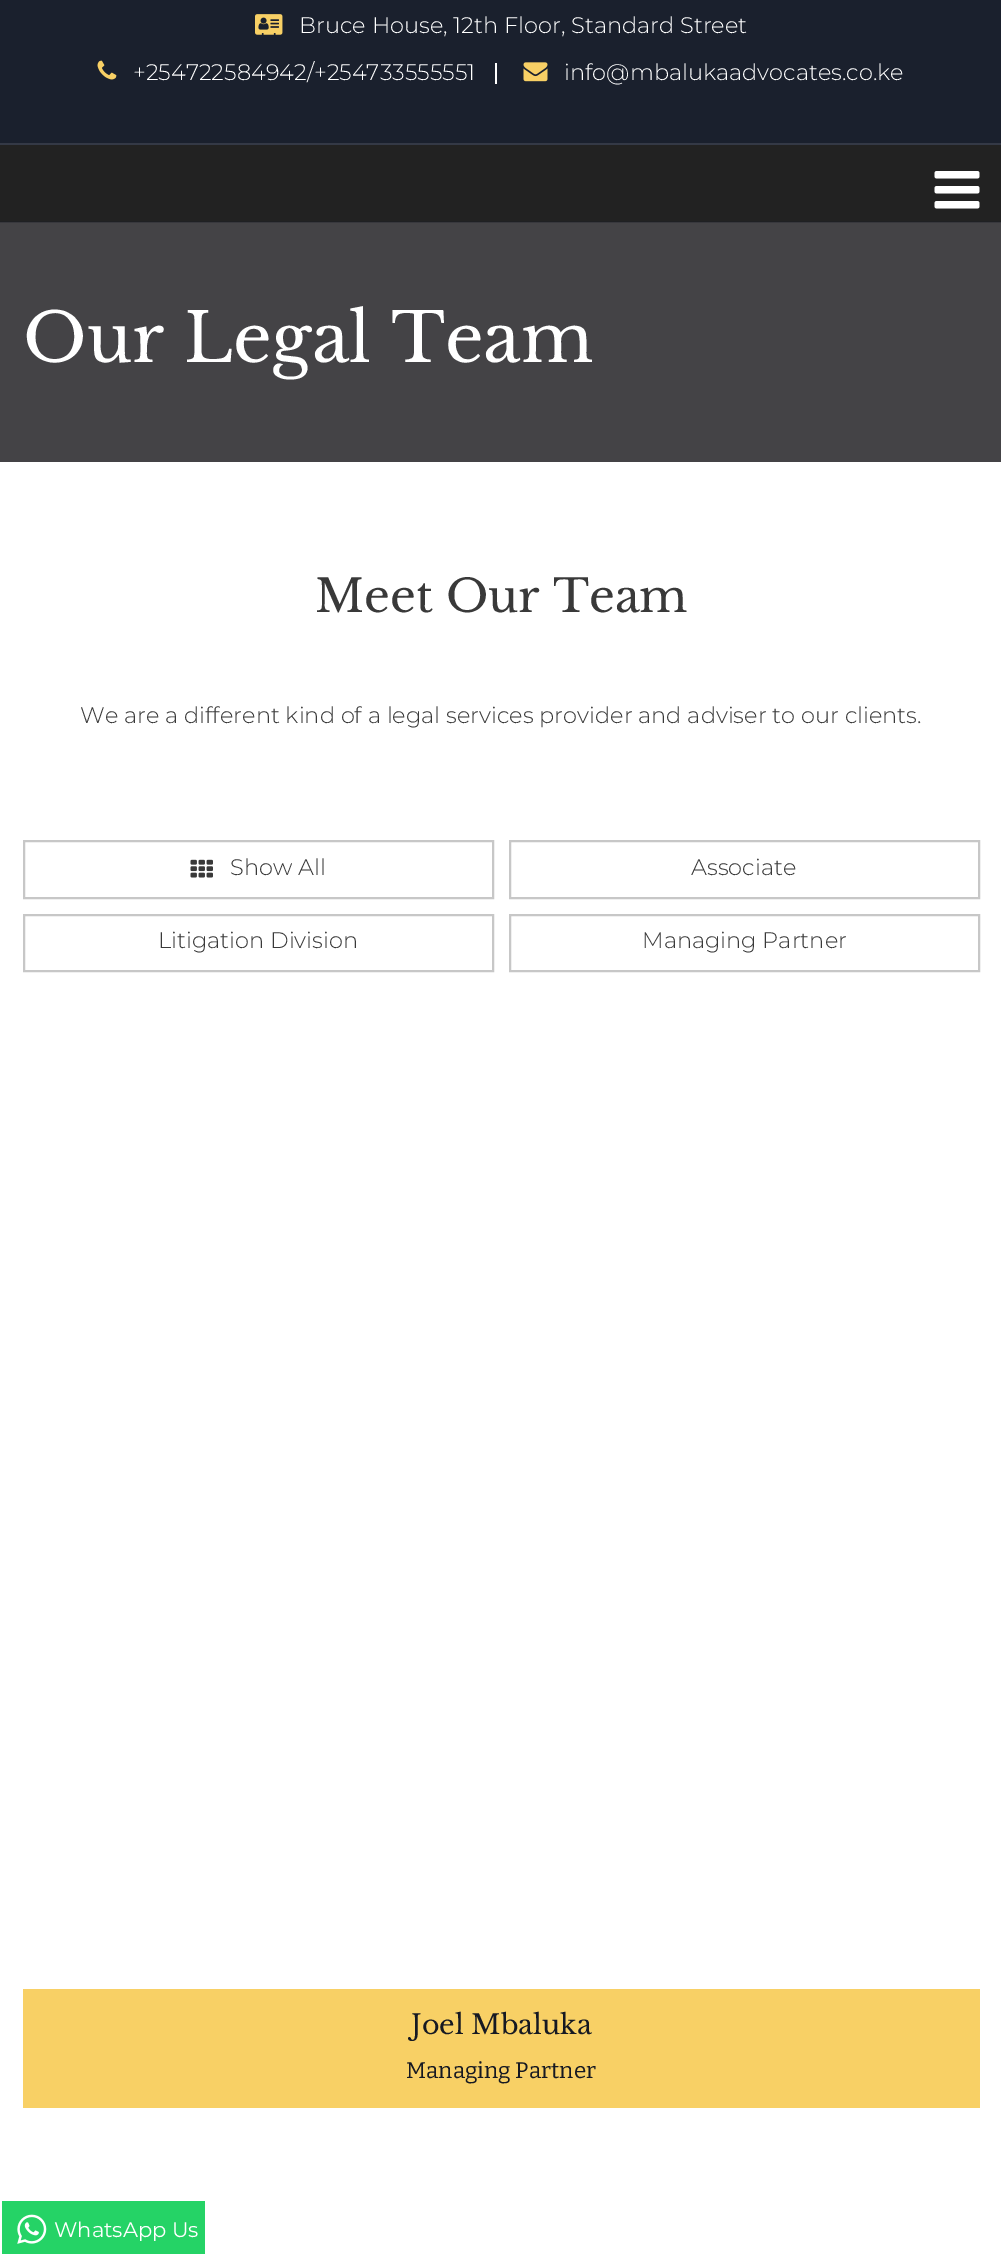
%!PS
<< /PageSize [1001 2256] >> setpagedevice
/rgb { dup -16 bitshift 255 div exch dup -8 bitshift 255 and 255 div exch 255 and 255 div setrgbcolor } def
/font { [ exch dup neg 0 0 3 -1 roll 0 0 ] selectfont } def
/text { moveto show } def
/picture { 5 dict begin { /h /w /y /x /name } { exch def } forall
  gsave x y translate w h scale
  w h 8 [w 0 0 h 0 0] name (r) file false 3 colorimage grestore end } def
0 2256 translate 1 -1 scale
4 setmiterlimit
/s1 { /Montserrat-Light 22.5 font 16#FFFFFF rgb } def
/s2 { /LibreBaskerville-Regular 67.5 font 16#FFFFFF rgb } def
/s3 { /LibreBaskerville-Regular 45 font 16#393939 rgb } def
/s4 { /Montserrat-Light 22.5 font 16#393939 rgb } def
/s5 { /LibreBaskerville-Regular 27 font 16#161922 rgb } def
/s6 { /Bitter-Thin 22.5 font 16#161922 rgb } def
/s7 { /Montserrat-Regular 21 font 16#FFFFFF rgb } def
16#FFFFFF rgb
0 0 1001 2256 rectfill
16#1A202D rgb
0 0 1001 143 rectfill
(pic1.raw) 255 14 28 21 picture
s1
(Bruce House, 12th Floor, Standard Street) 299 33 text
(pic2.raw) 97 60 20 20 picture
(+254722584942/+254733555551) 133 80 text
495 63 2 21 rectfill
(pic3.raw) 523 62 25 20 picture
(info@mbalukaadvocates.co.ke) 564 80 text
16#222222 rgb
0 145 1001 76 rectfill
16#1F2023 rgb
0 221 1001 1 rectfill
16#343946 rgb
0 143 1001 2 rectfill
(pic4.raw) 934 171 46 38 picture
16#444346 rgb
0 223 1001 239 rectfill
16#38383D rgb
0 222 1001 1 rectfill
s2
(Our Legal Team) 23 362 text
s3
(Meet Our Team) 315 612 text
s4
(We are a different kind of a legal services provider and adviser to our clients.) 80 723 text
16#C7C7C7 rgb
2 setlinewidth
24 841 469 57 rectstroke
(pic5.raw) 190 859 23 19 picture
s4
(Show All) 230 875 text
16#C7C7C7 rgb
510 841 469 57 rectstroke
s4
(Associate) 691 875 text
16#C7C7C7 rgb
24 915 469 56 rectstroke
s4
(Litigation Division) 158 948 text
16#C7C7C7 rgb
510 915 469 56 rectstroke
s4
(Managing Partner) 642 948 text
16#F8D065 rgb
23 1989 957 119 rectfill
s5
(Joel Mbaluka) 411 2034 text
s6
(Managing Partner) 406 2078 text
16#25D366 rgb
2 2201 203 53 rectfill
(pic6.raw) 17 2214 30 30 picture
s7
(WhatsApp Us) 54 2237 text
showpage
